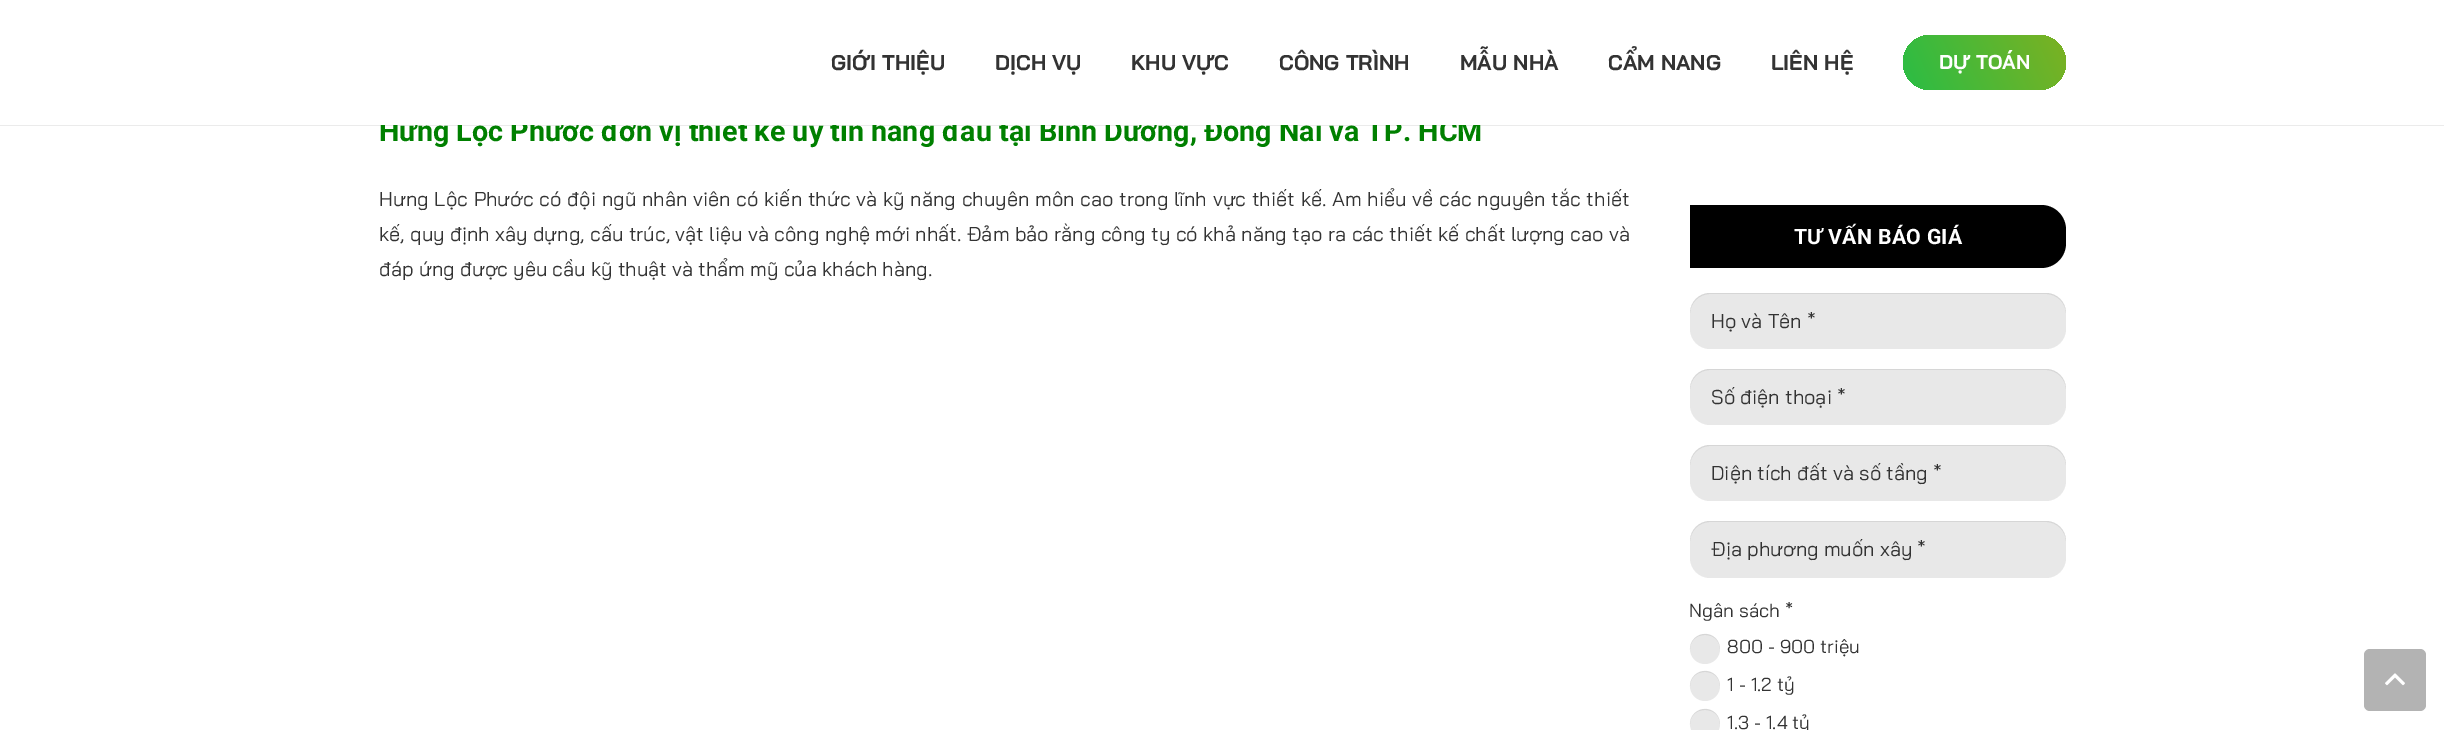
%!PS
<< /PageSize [2444 730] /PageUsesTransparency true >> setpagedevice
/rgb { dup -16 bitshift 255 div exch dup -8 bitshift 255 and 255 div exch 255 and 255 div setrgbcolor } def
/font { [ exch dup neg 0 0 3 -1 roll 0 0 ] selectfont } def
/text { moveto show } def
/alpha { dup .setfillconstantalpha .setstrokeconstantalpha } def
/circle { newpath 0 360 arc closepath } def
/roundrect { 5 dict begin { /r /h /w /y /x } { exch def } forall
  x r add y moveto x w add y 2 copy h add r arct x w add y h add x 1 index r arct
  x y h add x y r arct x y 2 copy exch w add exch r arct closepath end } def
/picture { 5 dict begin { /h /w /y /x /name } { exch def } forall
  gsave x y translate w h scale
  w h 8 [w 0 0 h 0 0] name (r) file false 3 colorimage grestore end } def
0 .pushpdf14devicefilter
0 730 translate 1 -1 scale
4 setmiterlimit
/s1 { /Roboto-Bold 28.75 font 16#008000 rgb } def
/s2 { /BaiJamjuree-Bold 21.25 font 16#333333 rgb } def
/s3 { /BaiJamjuree-Bold 20 font 16#FFFFFF rgb } def
/s4 { /BaiJamjuree-Regular 20 font 16#333333 rgb } def
/s5 { /BaiJamjuree-Regular 18.75 font 16#333333 rgb } def
16#FFFFFF rgb
0 0 2444 730 rectfill
0.08 alpha
16#000000 rgb
0 125 2444 1 rectfill
1 alpha
s1
(Hưng Lộc Phước đơn vị thiết kế uy tín hàng đầu tại Bình Dương, Đồng Nai và TP. HCM) 379 141 text
16#FFFFFF rgb
380 118 1101 7 rectfill
s2
(GIỚI THIỆU) 831 70 text
(DỊCH VỤ) 995 70 text
(KHU VỰC) 1131 70 text
(CÔNG TRÌNH) 1279 70 text
(MẪU NHÀ) 1460 70 text
(CẨM NANG) 1608 70 text
(LIÊN HỆ) 1771 70 text
gsave 1903 35 163 55 27.5 roundrect clip newpath
<< /ShadingType 2 /ColorSpace /DeviceRGB /Coords [1907 99 2062 26] /Extend [true true] /Function << /FunctionType 2 /Domain [0 1] /C0 [0.165 0.741 0.271] /C1 [0.486 0.694 0.133] /N 1 >> >> shfill grestore
s3
(DỰ TOÁN) 1939 69 text
/BaiJamjuree-Regular 20 font
16#333333 rgb
379 206 moveto 0.55 0 32 (Hưng Lộc Phước có đội ngũ nhân viên có kiến thức và kỹ năng chuyên môn cao trong lĩnh vực thiết kế. Am hiểu về các nguyên tắc thiết) widthshow
379 241 moveto 0.2 0 32 (kế, quy định xây dựng, cấu trúc, vật liệu và công nghệ mới nhất. Đảm bảo rằng công ty có khả năng tạo ra các thiết kế chất lượng cao và) widthshow
(đáp ứng được yêu cầu kỹ thuật và thẩm mỹ của khách hàng.) 379 276 text
16#000000 rgb
1690 205 moveto 2041 205 lineto 2055 205 2066 216 2066 230 curveto 2066 243 lineto 2066 257 2055 268 2041 268 curveto 1690 268 lineto closepath fill
/Roboto-Bold 21.25 font
16#FFFFFF rgb
1794 244 moveto 0.25 0 (TƯ VẤN BÁO GIÁ) ashow
16#E8E8E8 rgb
1690 293 376 56 20 roundrect fill
0.08 alpha
16#000000 rgb
1710 294 moveto 2046 294 lineto 2057 294 2066 303 2066 314 curveto 2066 313 lineto 2066 302 2057 293 2046 293 curveto 1710 293 lineto 1699 293 1690 302 1690 313 curveto 1690 314 lineto 1690 303 1699 294 1710 294 curveto closepath fill
1 alpha
s4
(Họ và Tên *) 1711 328 text
16#E8E8E8 rgb
1690 369 376 56 20 roundrect fill
0.08 alpha
16#000000 rgb
1710 370 moveto 2046 370 lineto 2057 370 2066 379 2066 390 curveto 2066 389 lineto 2066 378 2057 369 2046 369 curveto 1710 369 lineto 1699 369 1690 378 1690 389 curveto 1690 390 lineto 1690 379 1699 370 1710 370 curveto closepath fill
1 alpha
s4
(Số điện thoại *) 1711 404 text
16#E8E8E8 rgb
1690 445 376 56 20 roundrect fill
0.08 alpha
16#000000 rgb
1710 446 moveto 2046 446 lineto 2057 446 2066 455 2066 466 curveto 2066 465 lineto 2066 454 2057 445 2046 445 curveto 1710 445 lineto 1699 445 1690 454 1690 465 curveto 1690 466 lineto 1690 455 1699 446 1710 446 curveto closepath fill
1 alpha
s4
(Diện tích đất và số tầng *) 1711 480 text
16#E8E8E8 rgb
1690 521 376 57 20 roundrect fill
0.08 alpha
16#000000 rgb
1710 522 moveto 2046 522 lineto 2057 522 2066 531 2066 542 curveto 2066 541 lineto 2066 530 2057 521 2046 521 curveto 1710 521 lineto 1699 521 1690 530 1690 541 curveto 1690 542 lineto 1690 531 1699 522 1710 522 curveto closepath fill
1 alpha
s4
(Địa phương muốn xây *) 1711 556 text
s5
(Ngân sách *) 1689 617 text
16#E8E8E8 rgb
1705 649 15 circle fill
0.08 alpha
16#000000 rgb
1705 635 moveto 1715 635 1720 642 1720 649.5 curveto 1720 646.5 1719 643 1717.5 640.5 curveto 1709 628 1689.5 634.5 1690 649.5 curveto 1690 642 1695 635 1705 635 curveto closepath fill
1 alpha
s5
(800 - 900 triệu) 1727 653 text
16#E8E8E8 rgb
1705 686 15 circle fill
0.08 alpha
16#000000 rgb
1705 672 moveto 1715 672 1720 679 1720 686.5 curveto 1720 683.5 1719 680 1717.5 677.5 curveto 1709 665 1689.5 671.5 1690 686.5 curveto 1690 679 1695 672 1705 672 curveto closepath fill
1 alpha
s5
(1 - 1.2 tỷ) 1727 691 text
16#E8E8E8 rgb
1705 724 15 circle fill
0.08 alpha
16#000000 rgb
1705 710 moveto 1715 710 1720 717 1720 724.5 curveto 1720 721.5 1719 718 1717.5 715.5 curveto 1709 703 1689.5 709.5 1690 724.5 curveto 1690 717 1695 710 1705 710 curveto closepath fill
1 alpha
s5
(1.3 - 1.4 tỷ) 1727 729 text
16#B3B3B3 rgb
2364 649 62 62 6 roundrect fill
(pic1.raw) 2385 673 20 13 picture
.poppdf14devicefilter showpage
